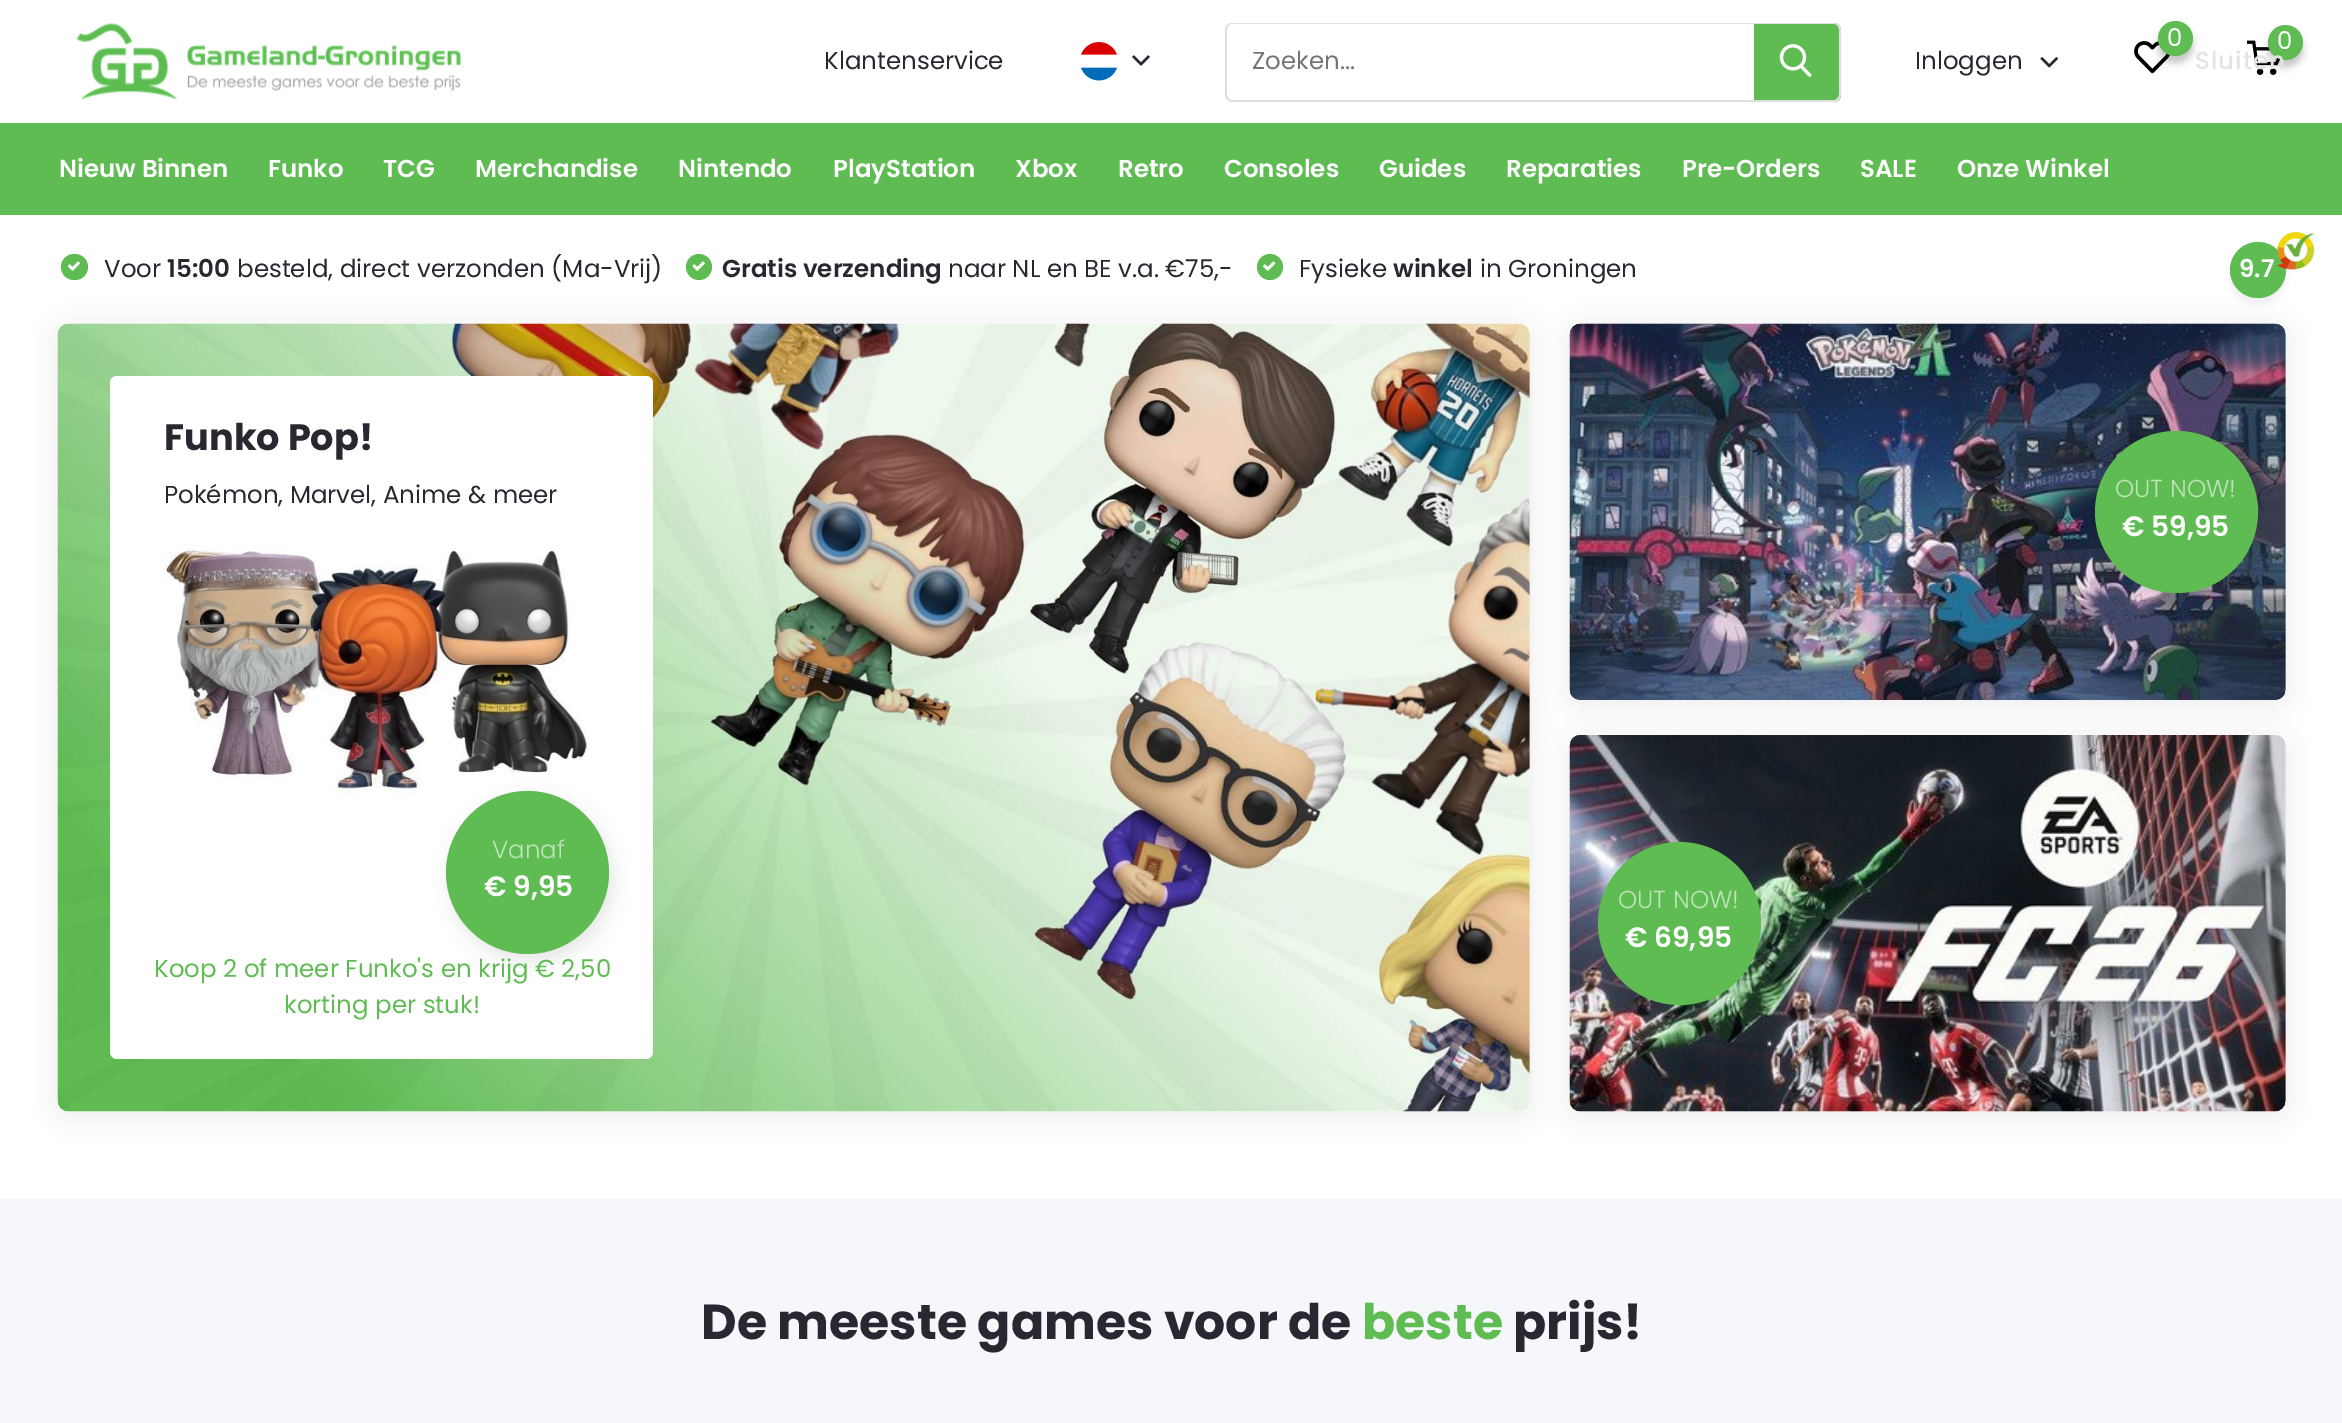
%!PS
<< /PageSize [2342 1423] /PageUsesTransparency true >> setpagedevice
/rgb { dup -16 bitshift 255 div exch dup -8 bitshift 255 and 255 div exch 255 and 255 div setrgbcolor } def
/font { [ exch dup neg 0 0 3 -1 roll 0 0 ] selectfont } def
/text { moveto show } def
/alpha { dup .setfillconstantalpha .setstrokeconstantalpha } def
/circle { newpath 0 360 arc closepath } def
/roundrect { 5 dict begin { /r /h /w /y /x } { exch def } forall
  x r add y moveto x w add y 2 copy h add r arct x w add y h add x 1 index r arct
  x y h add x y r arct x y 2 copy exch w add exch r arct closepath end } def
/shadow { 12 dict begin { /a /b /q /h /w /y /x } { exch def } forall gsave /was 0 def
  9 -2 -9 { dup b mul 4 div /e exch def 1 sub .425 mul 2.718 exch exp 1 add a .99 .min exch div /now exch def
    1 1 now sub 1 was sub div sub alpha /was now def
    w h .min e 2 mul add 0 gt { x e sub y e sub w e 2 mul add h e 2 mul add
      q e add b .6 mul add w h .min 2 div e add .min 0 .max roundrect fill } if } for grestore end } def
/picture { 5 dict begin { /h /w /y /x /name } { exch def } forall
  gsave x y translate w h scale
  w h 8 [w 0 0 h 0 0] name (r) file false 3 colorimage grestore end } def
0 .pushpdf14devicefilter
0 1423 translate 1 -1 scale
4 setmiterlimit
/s1 { /Poppins-Regular 24.5 font 16#FFFFFF rgb } def
/s2 { /Poppins-Regular 24.5 font 16#282830 rgb } def
/s3 { /Poppins-Regular 24.5 font 16#757575 rgb } def
/s4 { /Poppins-SemiBold 24.5 font 16#FFFFFF rgb } def
/s5 { /Poppins-SemiBold 24.5 font 16#282830 rgb } def
/s6 { /Poppins-Bold 36.75 font 16#282830 rgb } def
/s7 { /Poppins-Light 24.5 font 16#BFE4BA rgb } def
/s8 { /Poppins-SemiBold 28 font 16#FFFFFF rgb } def
/s9 { /Poppins-Regular 24.5 font 16#5EBC52 rgb } def
/s10 { /Poppins-Bold 49 font 16#282830 rgb } def
/s11 { /Poppins-Bold 49 font 16#5EBC52 rgb } def
16#FFFFFF rgb
0 0 2342 1423 rectfill
(pic1.raw) 76 23 385 77 picture
(pic2.raw) 2134 41 36 33 picture
16#282830 rgb
2158 28 35 35 17.5 3.5 0.25 shadow
16#5EBC52 rgb
2175.5 38.5 17.5 circle fill
s1
(0) 2167 46 text
(pic3.raw) 2247 40 34 35 picture
16#282830 rgb
2268 32 35 35 17.5 3.5 0.25 shadow
16#5EBC52 rgb
2285.5 42.5 17.5 circle fill
s1
(0) 2277 49 text
s2
(Klantenservice) 824 69 text
(pic4.raw) 1080 42 38 39 picture
(pic5.raw) 1132 55 18 11 picture
16#DEDEDE rgb
1232 23 moveto 1754 23 lineto 1754 102 lineto 1232 102 lineto 1228 102 1225 98 1225 94 curveto 1225 30 lineto 1225 26 1228 23 1232 23 curveto closepath 1232 24 moveto 1754 24 lineto 1754 100 lineto 1232 100 lineto 1229 100 1227 97 1227 94 curveto 1227 30 lineto 1227 27 1229 24 1232 24 curveto closepath eofill
s3
(Zoeken...) 1252 69 text
16#5EBC52 rgb
1754 23 moveto 1834 23 lineto 1838 23 1841 26 1841 30 curveto 1841 95 lineto 1841 99 1838 102 1834 102 curveto 1754 102 lineto closepath fill
16#DEDEDE rgb
1754 23 moveto 1834 23 lineto 1838 23 1841 26 1841 30 curveto 1841 94 lineto 1841 98 1838 102 1834 102 curveto 1754 102 lineto closepath 1754 24 moveto 1834 24 lineto 1837 24 1839 27 1839 30 curveto 1839 94 lineto 1839 97 1837 100 1834 100 curveto 1754 100 lineto closepath eofill
(pic6.raw) 1779 44 33 33 picture
s2
(Inloggen) 1915 69 text
(pic7.raw) 2040 57 18 11 picture
/Poppins-Medium 24.5 font
16#E1E4E1 rgb
2195 69 moveto 1 0 (Sluiten) ashow
16#5EBC52 rgb
0 123 2342 92 rectfill
s4
(Nieuw Binnen) 59 177 text
(Funko) 268 177 text
(TCG) 383 177 text
(Merchandise) 475 177 text
(Nintendo) 678 177 text
(PlayStation) 833 177 text
(Xbox) 1015 177 text
(Retro) 1118 177 text
(Consoles) 1224 177 text
(Guides) 1379 177 text
(Reparaties) 1506 177 text
(Pre-Orders) 1682 177 text
(SALE) 1860 177 text
(Onze Winkel) 1957 177 text
16#5EBC52 rgb
61 254 27 26 13 roundrect fill
(pic8.raw) 67 261 13 10 picture
s2
(Voor) 104 277 text
s5
(15:00) 167 277 text
s2
(besteld, direct verzonden \(Ma-Vrij\)) 237 277 text
16#5EBC52 rgb
699 267 13 circle fill
(pic9.raw) 692 261 13 10 picture
s5
(Gratis verzending) 722 277 text
s2
(naar NL en BE v.a. €75,-) 948 277 text
16#5EBC52 rgb
1270 267 13 circle fill
(pic10.raw) 1263 261 13 10 picture
s2
(Fysieke) 1299 277 text
s5
(winkel) 1393 277 text
s2
(in Groningen) 1480 277 text
16#000000 rgb
2230 249 56 56 28 3.5 0.06 shadow
16#5EBC52 rgb
2258 270 28 circle fill
s4
(9.7) 2239 277 text
(pic11.raw) 2276 231 39 39 picture
16#000000 rgb
58 327 1472 788 11 13 0.08 shadow
(pic12.raw) 57 323 1473 789 picture
(pic13.raw) 57 323 1473 789 picture
16#FFFFFF rgb
110 376 543 683 7 roundrect fill
s6
(Funko Pop!) 164 450 text
s2
(Pokémon, Marvel, Anime & meer) 164 503 text
(pic14.raw) 163 544 425 251 picture
16#000000 rgb
450 798 163 163 81.5 9 0.1 shadow
16#5EBC52 rgb
527.5 872.5 81.5 circle fill
s7
(Vanaf) 492 858 text
s8
(€ 9,95) 484 896 text
s9
(Koop 2 of meer Funko's en krijg € 2,50) 154 977 text
(korting per stuk!) 284 1013 text
16#000000 rgb
1570 327 716 377 11 13 0.08 shadow
(pic15.raw) 1569 323 717 377 picture
(pic16.raw) 1569 323 717 377 picture
2098 438 163 162 81 9 0.1 shadow
16#5EBC52 rgb
2095 431 163 162 81 roundrect fill
s7
(OUT NOW!) 2115 497 text
s8
(€ 59,95) 2122 536 text
16#000000 rgb
1570 739 716 376 11 13 0.08 shadow
(pic17.raw) 1569 735 717 377 picture
(pic18.raw) 1569 735 717 377 picture
1601 849 163 163 81.5 9 0.1 shadow
16#5EBC52 rgb
1679.5 923.5 81.5 circle fill
s7
(OUT NOW!) 1618 908 text
s8
(€ 69,95) 1625 947 text
16#F5F7FA rgb
0 1199 2342 224 rectfill
s10
(De meeste games voor de) 701 1339 text
s11
(beste) 1362 1339 text
s10
(prijs!) 1513 1339 text
.poppdf14devicefilter showpage
